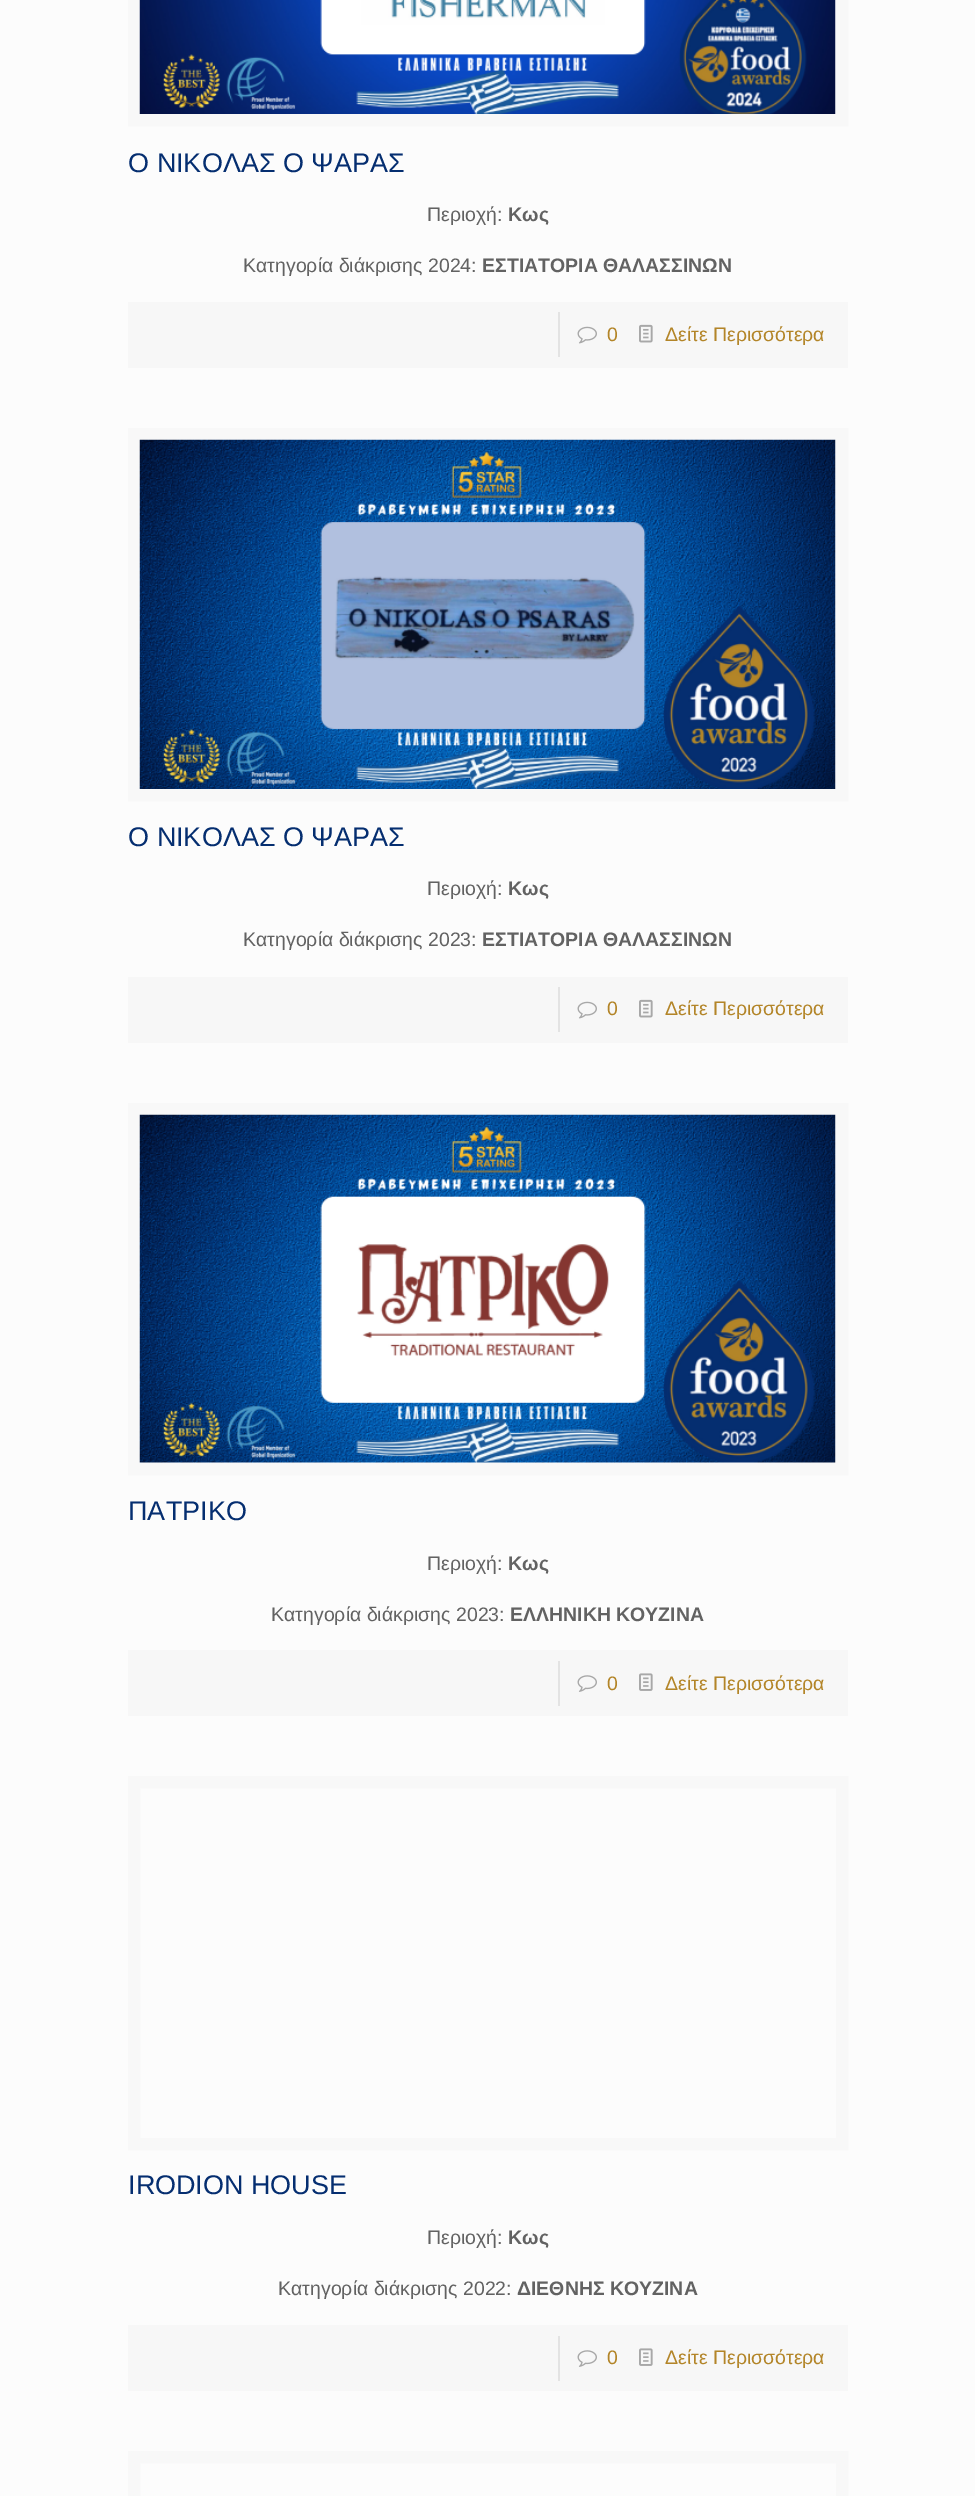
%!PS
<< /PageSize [975 2496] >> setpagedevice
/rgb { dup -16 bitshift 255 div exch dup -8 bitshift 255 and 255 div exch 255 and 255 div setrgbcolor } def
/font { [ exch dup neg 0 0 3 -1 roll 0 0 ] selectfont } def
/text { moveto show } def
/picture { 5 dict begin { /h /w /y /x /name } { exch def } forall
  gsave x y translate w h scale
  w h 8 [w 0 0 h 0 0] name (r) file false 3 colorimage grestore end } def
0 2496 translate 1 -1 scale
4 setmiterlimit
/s1 { /LiberationSans-Regular 27 font 16#052E70 rgb } def
/s2 { /LiberationSans-Regular 19.5 font 16#626262 rgb } def
/s3 { /LiberationSans-Bold 19.5 font 16#626262 rgb } def
/s4 { /LiberationSans-Regular 19.5 font 16#B38528 rgb } def
16#FCFCFC rgb
0 0 975 2496 rectfill
16#F8F8F8 rgb
12 setlinewidth
134 -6 708 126 rectstroke
(pic1.raw) 139 0 697 114 picture
s1
(Ο ΝΙΚΟΛΑΣ Ο ΨΑΡΑΣ) 128 172 text
s2
(Περιοχή:) 427 221 text
s3
(Κως) 508 221 text
s2
(Κατηγορία διάκρισης 2024:) 243 272 text
s3
(ΕΣΤΙΑΤΟΡΙΑ ΘΑΛΑΣΣΙΝΩΝ) 482 272 text
16#F7F7F7 rgb
128 302 720 66 rectfill
16#E3E3E3 rgb
558 312 2 45 rectfill
(pic2.raw) 577 326 20 18 picture
s4
(0) 607 341 text
(pic3.raw) 639 324 14 19 picture
(Δείτε Περισσότερα) 665 341 text
16#F8F8F8 rgb
134 434 708 361 rectstroke
(pic4.raw) 139 439 697 350 picture
s1
(Ο ΝΙΚΟΛΑΣ Ο ΨΑΡΑΣ) 128 846 text
s2
(Περιοχή:) 427 895 text
s3
(Κως) 508 895 text
s2
(Κατηγορία διάκρισης 2023:) 243 946 text
s3
(ΕΣΤΙΑΤΟΡΙΑ ΘΑΛΑΣΣΙΝΩΝ) 482 946 text
16#F7F7F7 rgb
128 977 720 66 rectfill
16#E3E3E3 rgb
558 987 2 45 rectfill
(pic2.raw) 577 1001 20 18 picture
s4
(0) 607 1015 text
(pic3.raw) 639 999 14 19 picture
(Δείτε Περισσότερα) 665 1015 text
16#F8F8F8 rgb
134 1109 708 360 rectstroke
(pic5.raw) 139 1114 697 349 picture
s1
(ΠΑΤΡΙΚΟ) 128 1520 text
s2
(Περιοχή:) 427 1570 text
s3
(Κως) 508 1570 text
s2
(Κατηγορία διάκρισης 2023:) 271 1621 text
s3
(ΕΛΛΗΝΙΚΗ ΚΟΥΖΙΝΑ) 510 1621 text
16#F7F7F7 rgb
128 1650 720 66 rectfill
16#E3E3E3 rgb
558 1661 2 45 rectfill
(pic6.raw) 577 1675 20 17 picture
s4
(0) 607 1690 text
(pic7.raw) 639 1673 14 18 picture
(Δείτε Περισσότερα) 665 1690 text
16#F8F8F8 rgb
134 1782 708 362 rectstroke
s1
(IRODION HOUSE) 128 2194 text
s2
(Περιοχή:) 427 2244 text
s3
(Κως) 508 2244 text
s2
(Κατηγορία διάκρισης 2022:) 278 2295 text
s3
(ΔΙΕΘΝΗΣ ΚΟΥΖΙΝΑ) 517 2295 text
16#F7F7F7 rgb
128 2325 720 66 rectfill
16#E3E3E3 rgb
558 2336 2 45 rectfill
(pic6.raw) 577 2350 20 17 picture
s4
(0) 607 2364 text
(pic7.raw) 639 2348 14 18 picture
(Δείτε Περισσότερα) 665 2364 text
16#F8F8F8 rgb
134 2457 708 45 rectstroke
showpage
